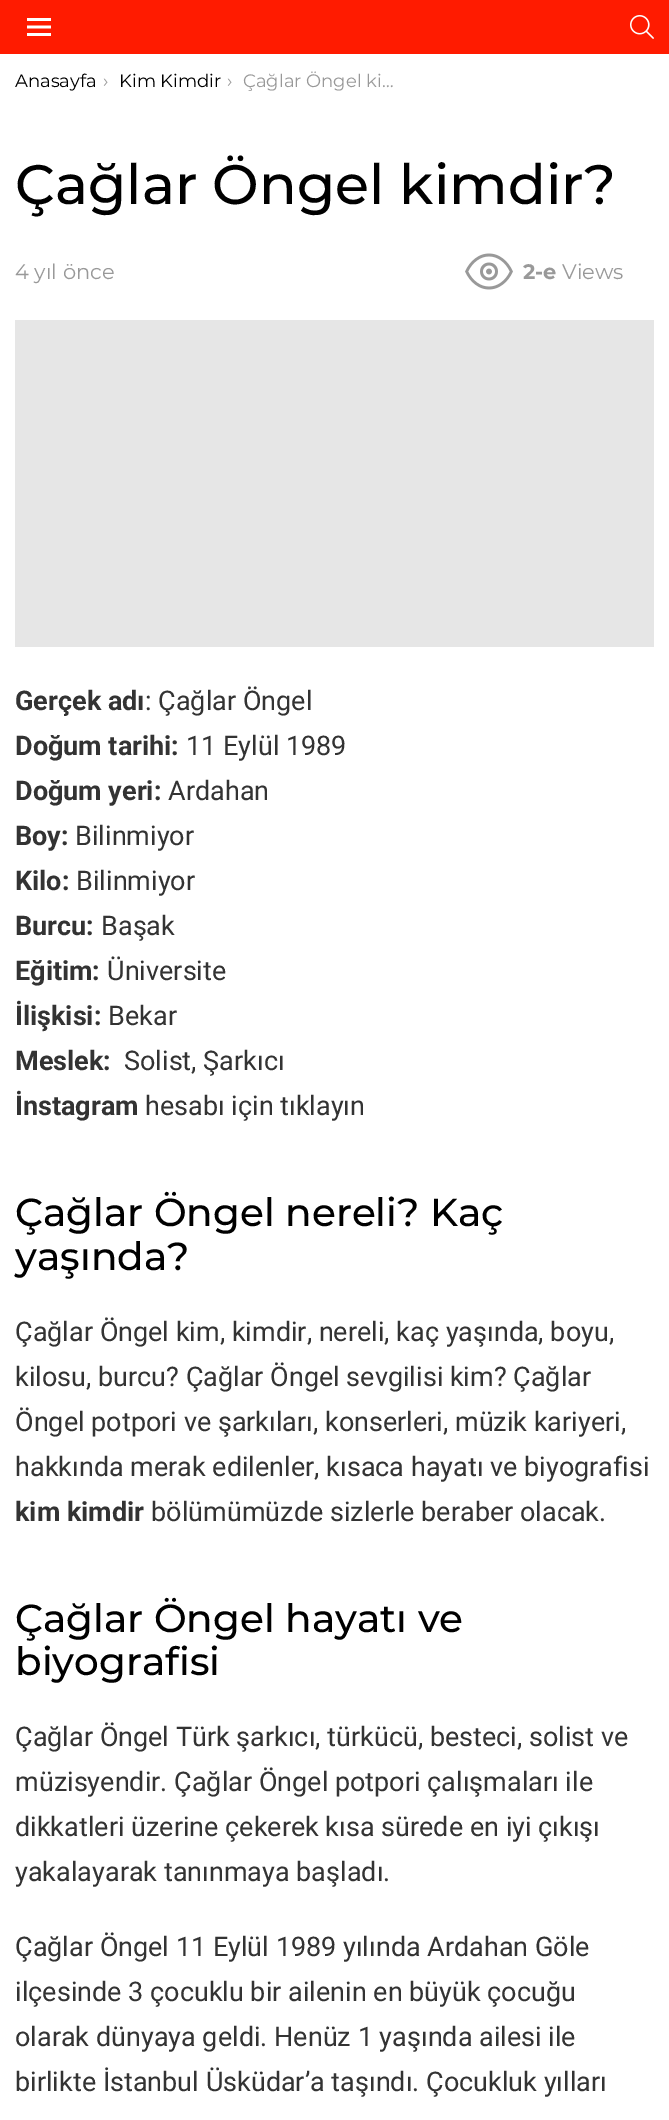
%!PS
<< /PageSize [669 2120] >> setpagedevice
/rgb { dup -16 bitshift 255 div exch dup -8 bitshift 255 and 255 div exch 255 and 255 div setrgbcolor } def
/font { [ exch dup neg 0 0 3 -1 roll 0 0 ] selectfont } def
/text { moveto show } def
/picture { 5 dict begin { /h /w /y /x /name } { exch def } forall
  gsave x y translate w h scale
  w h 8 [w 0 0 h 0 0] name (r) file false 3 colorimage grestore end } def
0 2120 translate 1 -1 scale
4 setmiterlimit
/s1 { /Montserrat-Regular 18 font 16#000000 rgb } def
/s2 { /Montserrat-Regular 18 font 16#999999 rgb } def
/s3 { /Montserrat-Medium 55.5 font 16#000000 rgb } def
/s4 { /Montserrat-Regular 21 font 16#999999 rgb } def
/s5 { /Montserrat-Bold 21 font 16#999999 rgb } def
/s6 { /Roboto-Bold 27 font 16#333333 rgb } def
/s7 { /Roboto-Regular 27 font 16#333333 rgb } def
/s8 { /Montserrat-Medium 39 font 16#000000 rgb } def
16#FFFFFF rgb
0 0 669 2120 rectfill
16#FF1B00 rgb
0 0 669 54 rectfill
(pic1.raw) 27 18 24 18 picture
(pic2.raw) 630 15 24 24 picture
s1
(Anasayfa) 15 87 text
s2
(›) 103 87 text
s1
(Kim Kimdir) 119 87 text
s2
(›) 227 87 text
(Çağlar Öngel ki…) 243 87 text
s3
(Çağlar Öngel kimdir?) 15 204 text
s4
(4 yıl önce) 15 279 text
(pic3.raw) 465 253 48 37 picture
s5
(2-e) 523 279 text
s4
(Views) 562 279 text
16#E6E6E6 rgb
15 320 639 327 rectfill
s6
(Gerçek adı) 15 710 text
s7
(: Çağlar Öngel) 145 710 text
s6
(Doğum tarihi:) 15 755 text
s7
(11 Eylül 1989) 186 755 text
s6
(Doğum yeri:) 15 800 text
s7
(Ardahan) 168 800 text
s6
(Boy:) 15 845 text
s7
(Bilinmiyor) 75 845 text
s6
(Kilo:) 15 890 text
s7
(Bilinmiyor) 76 890 text
s6
(Burcu:) 15 935 text
s7
(Başak) 101 935 text
s6
(Eğitim:) 15 980 text
s7
(Üniversite) 107 980 text
s6
(İlişkisi:) 15 1025 text
s7
(Bekar) 108 1025 text
s6
(Meslek:) 15 1070 text
s7
(Solist, Şarkıcı) 124 1070 text
s6
(İnstagram) 15 1115 text
s7
(hesabı için tıklayın) 145 1115 text
s8
(Çağlar Öngel nereli? Kaç) 15 1226 text
(yaşında?) 15 1270 text
s7
(Çağlar Öngel kim, kimdir, nereli, kaç yaşında, boyu,) 15 1341 text
(kilosu, burcu? Çağlar Öngel sevgilisi kim? Çağlar) 15 1386 text
(Öngel potpori ve şarkıları, konserleri, müzik kariyeri,) 15 1431 text
(hakkında merak edilenler, kısaca hayatı ve biyografisi) 15 1476 text
s6
(kim kimdir) 15 1521 text
s7
(bölümümüzde sizlerle beraber olacak.) 151 1521 text
s8
(Çağlar Öngel hayatı ve) 15 1632 text
(biyografisi) 15 1675 text
s7
(Çağlar Öngel Türk şarkıcı, türkücü, besteci, solist ve) 15 1746 text
(müzisyendir. Çağlar Öngel potpori çalışmaları ile) 15 1791 text
(dikkatleri üzerine çekerek kısa sürede en iyi çıkışı) 15 1836 text
(yakalayarak tanınmaya başladı.) 15 1881 text
(Çağlar Öngel 11 Eylül 1989 yılında Ardahan Göle) 15 1956 text
(ilçesinde 3 çocuklu bir ailenin en büyük çocuğu) 15 2001 text
(olarak dünyaya geldi. Henüz 1 yaşında ailesi ile) 15 2046 text
(birlikte İstanbul Üsküdar’a taşındı. Çocukluk yılları) 15 2091 text
showpage
